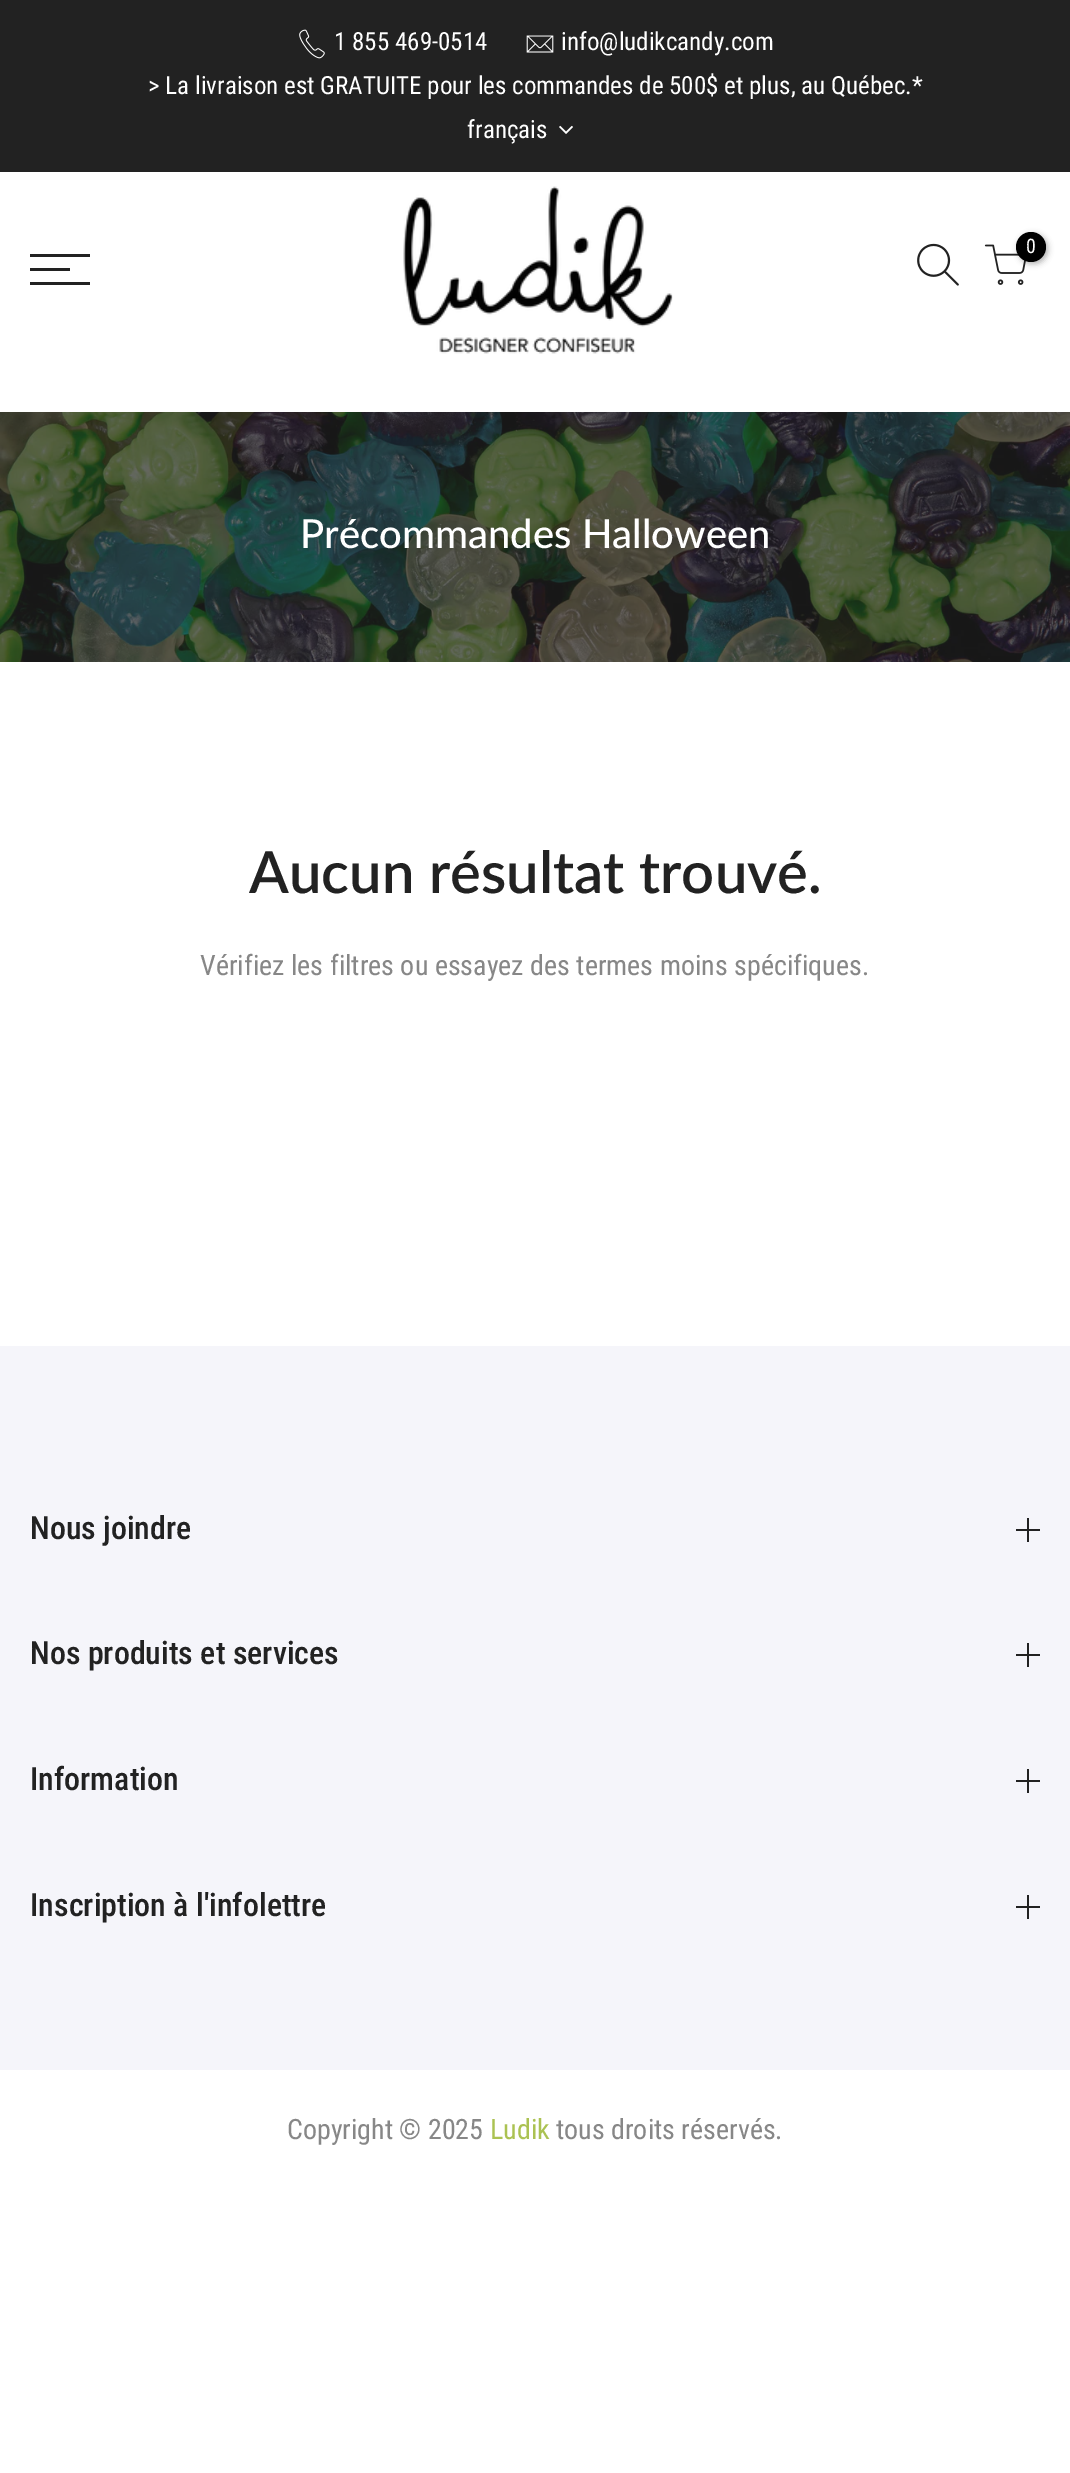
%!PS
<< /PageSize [1070 2473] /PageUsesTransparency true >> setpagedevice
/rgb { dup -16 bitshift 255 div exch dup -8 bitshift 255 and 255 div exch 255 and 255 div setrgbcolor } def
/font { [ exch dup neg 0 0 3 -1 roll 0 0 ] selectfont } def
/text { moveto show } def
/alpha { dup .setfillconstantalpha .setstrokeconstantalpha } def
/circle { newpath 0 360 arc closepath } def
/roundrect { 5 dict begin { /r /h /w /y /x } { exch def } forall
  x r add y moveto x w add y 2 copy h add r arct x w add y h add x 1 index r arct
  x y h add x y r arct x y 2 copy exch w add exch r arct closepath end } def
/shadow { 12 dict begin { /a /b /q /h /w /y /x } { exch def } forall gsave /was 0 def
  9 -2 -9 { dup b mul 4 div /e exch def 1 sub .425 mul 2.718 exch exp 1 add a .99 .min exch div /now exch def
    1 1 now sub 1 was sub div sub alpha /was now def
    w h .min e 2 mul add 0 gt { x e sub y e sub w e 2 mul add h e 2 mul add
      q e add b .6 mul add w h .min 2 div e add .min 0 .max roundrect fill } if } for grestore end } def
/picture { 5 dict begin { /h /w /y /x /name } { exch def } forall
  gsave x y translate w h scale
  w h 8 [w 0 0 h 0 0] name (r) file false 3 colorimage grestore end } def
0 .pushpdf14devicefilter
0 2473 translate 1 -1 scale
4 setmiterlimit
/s1 { /RobotoCondensed-Regular 25 font 16#FFFFFF rgb } def
/s2 { /RobotoCondensed-Regular 20 font 16#FFFFFF rgb } def
/s3 { /Lato-Medium 40 font 16#FFFFFF rgb } def
/s4 { /Lato-SemiBold 58 font 16#222222 rgb } def
/s5 { /RobotoCondensed-Regular 28 font 16#878787 rgb } def
/s6 { /RobotoCondensed-Medium 32 font 16#222222 rgb } def
/s7 { /RobotoCondensed-Regular 28 font 16#ABC252 rgb } def
16#FFFFFF rgb
0 0 1070 2473 rectfill
16#222222 rgb
0 0 1070 172 rectfill
(pic1.raw) 299 29 26 30 picture
s1
(1 855 469-0514) 334 50 text
(pic2.raw) 526 35 28 18 picture
(info@ludikcandy.com) 561 50 text
(> La livraison est GRATUITE pour les commandes de 500$ et plus, au Québec.*) 148 94 text
(français) 467 138 text
(pic3.raw) 559 125 14 9 picture
(pic4.raw) 403 186 270 168 picture
(pic5.raw) 917 243 42 43 picture
(pic6.raw) 984 244 42 41 picture
16#000000 rgb
1018 234 30 30 15 3 0.3 shadow
1031 247 15 circle fill
s2
(0) 1026 253 text
16#222222 rgb
30 254 60 3 rectfill
30 268 40 3 rectfill
30 282 60 3 rectfill
(pic7.raw) 0 412 1070 250 picture
s3
(Précommandes Halloween) 300 548 text
s4
(Aucun résultat trouvé.) 249 893 text
s5
(Vérifiez les filtres ou essayez des termes moins spécifiques.) 200 975 text
16#F5F5FA rgb
0 1346 1070 724 rectfill
s6
(Nous joindre) 30 1539 text
1027 1518 2 24 rectfill
1016 1529 24 2 rectfill
(Nos produits et services) 30 1664 text
1027 1643 2 24 rectfill
1016 1654 24 2 rectfill
(Information) 30 1790 text
1027 1769 2 24 rectfill
1016 1780 24 2 rectfill
(Inscription à l'infolettre) 30 1916 text
1027 1895 2 24 rectfill
1016 1906 24 2 rectfill
s5
(Copyright © 2025) 287 2139 text
s7
(Ludik) 490 2139 text
s5
(tous droits réservés.) 556 2139 text
.poppdf14devicefilter showpage
